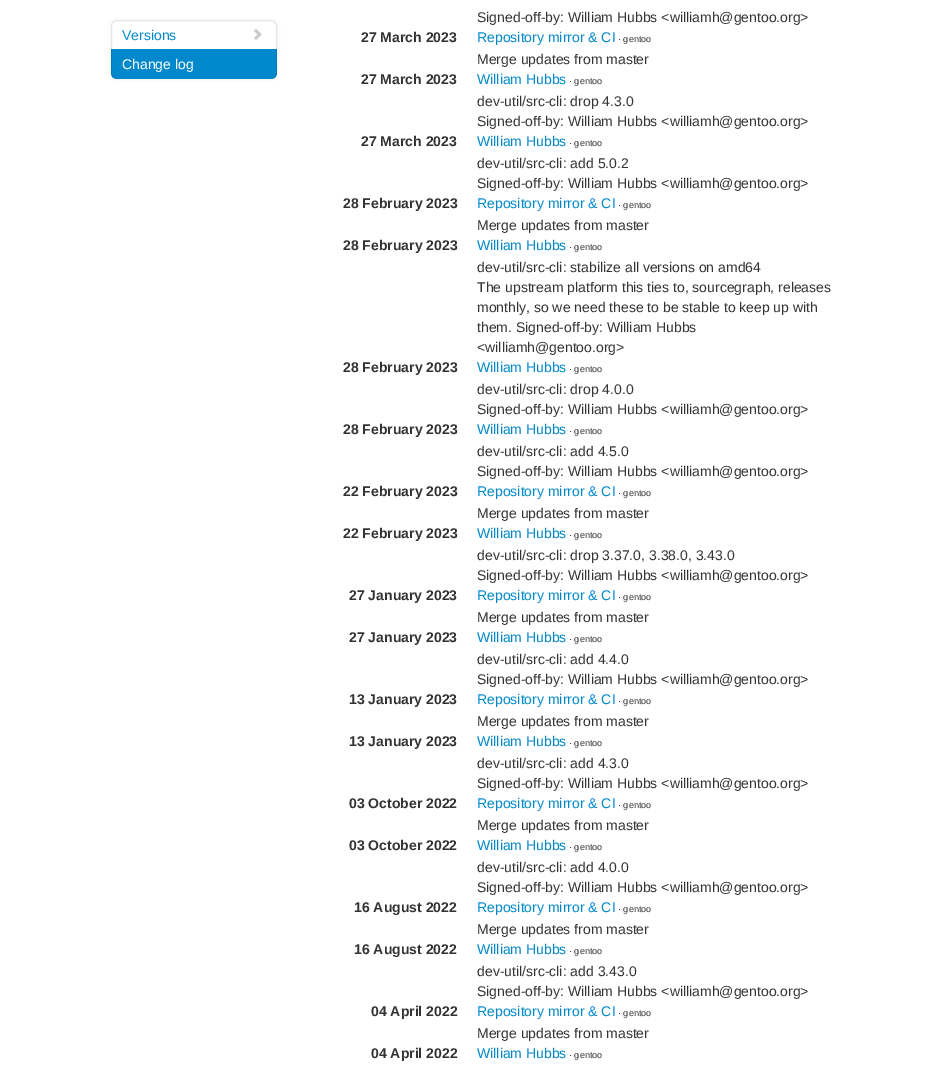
%!PS
<< /PageSize [946 1076] /PageUsesTransparency true >> setpagedevice
/rgb { dup -16 bitshift 255 div exch dup -8 bitshift 255 and 255 div exch 255 and 255 div setrgbcolor } def
/font { [ exch dup neg 0 0 3 -1 roll 0 0 ] selectfont } def
/text { moveto show } def
/alpha { dup .setfillconstantalpha .setstrokeconstantalpha } def
/roundrect { 5 dict begin { /r /h /w /y /x } { exch def } forall
  x r add y moveto x w add y 2 copy h add r arct x w add y h add x 1 index r arct
  x y h add x y r arct x y 2 copy exch w add exch r arct closepath end } def
/shadow { 12 dict begin { /a /b /q /h /w /y /x } { exch def } forall gsave /was 0 def
  9 -2 -9 { dup b mul 4 div /e exch def 1 sub .425 mul 2.718 exch exp 1 add a .99 .min exch div /now exch def
    1 1 now sub 1 was sub div sub alpha /was now def
    w h .min e 2 mul add 0 gt { x e sub y e sub w e 2 mul add h e 2 mul add
      q e add b .6 mul add w h .min 2 div e add .min 0 .max roundrect fill } if } for grestore end } def
/picture { 5 dict begin { /h /w /y /x /name } { exch def } forall
  gsave x y translate w h scale
  w h 8 [w 0 0 h 0 0] name (r) file false 3 colorimage grestore end } def
0 .pushpdf14devicefilter
0 1076 translate 1 -1 scale
4 setmiterlimit
/s1 { /LiberationSans-Regular 14 font 16#0088CC rgb } def
/s2 { /LiberationSans-Regular 14 font 16#FFFFFF rgb } def
/s3 { /LiberationSans-Regular 14 font 16#333333 rgb } def
/s4 { /LiberationSans-Bold 14 font 16#333333 rgb } def
/s5 { /LiberationSans-Regular 9 font 16#333333 rgb } def
16#FFFFFF rgb
0 0 946 1076 rectfill
16#000000 rgb
111 21 166 58 6 2 0.07 shadow
16#FFFFFF rgb
111 20 166 58 6 roundrect fill
16#E5E5E5 rgb
117 20.5 moveto 271 20.5 lineto 274 20.5 276.5 23 276.5 26 curveto 276.5 49.5 lineto 111.5 49.5 lineto 111.5 26 lineto 111.5 23 114 20.5 117 20.5 curveto closepath stroke
s1
(Versions) 122 40 text
(pic1.raw) 254 29 8 11 picture
111 49 moveto 277 49 lineto 277 73 lineto 277 76.5 274.5 79 271 79 curveto 117 79 lineto 113.5 79 111 76.5 111 73 curveto closepath fill
0.1 alpha
16#000000 rgb
270 79 moveto 278.5 79 277 71.5 277 65 curveto 277 49 lineto 276 49 lineto 276 73 lineto 276 76 273 79 270 79 curveto closepath fill
111 49 moveto 111 65 lineto 111 71.5 109.5 79 118 79 curveto 115 79 112 76 112 73 curveto 112 49 lineto closepath fill
1 alpha
s2
(Change log) 122 69 text
s3
(Signed-off-by: William Hubbs <williamh@gentoo.org>) 477 22 text
s4
(27 March 2023) 361 42 text
s1
(Repository mirror & CI) 477 42 text
s5
(· gentoo) 618 42 text
s3
(Merge updates from master) 477 64 text
s4
(27 March 2023) 361 84 text
s1
(William Hubbs) 477 84 text
s5
(· gentoo) 569 84 text
s3
(dev-util/src-cli: drop 4.3.0) 477 106 text
(Signed-off-by: William Hubbs <williamh@gentoo.org>) 477 126 text
s4
(27 March 2023) 361 146 text
s1
(William Hubbs) 477 146 text
s5
(· gentoo) 569 146 text
s3
(dev-util/src-cli: add 5.0.2) 477 168 text
(Signed-off-by: William Hubbs <williamh@gentoo.org>) 477 188 text
s4
(28 February 2023) 343 208 text
s1
(Repository mirror & CI) 477 208 text
s5
(· gentoo) 618 208 text
s3
(Merge updates from master) 477 230 text
s4
(28 February 2023) 343 250 text
s1
(William Hubbs) 477 250 text
s5
(· gentoo) 569 250 text
s3
(dev-util/src-cli: stabilize all versions on amd64) 477 272 text
(The upstream platform this ties to, sourcegraph, releases) 477 292 text
(monthly, so we need these to be stable to keep up with) 477 312 text
(them. Signed-off-by: William Hubbs) 477 332 text
(<williamh@gentoo.org>) 477 352 text
s4
(28 February 2023) 343 372 text
s1
(William Hubbs) 477 372 text
s5
(· gentoo) 569 372 text
s3
(dev-util/src-cli: drop 4.0.0) 477 394 text
(Signed-off-by: William Hubbs <williamh@gentoo.org>) 477 414 text
s4
(28 February 2023) 343 434 text
s1
(William Hubbs) 477 434 text
s5
(· gentoo) 569 434 text
s3
(dev-util/src-cli: add 4.5.0) 477 456 text
(Signed-off-by: William Hubbs <williamh@gentoo.org>) 477 476 text
s4
(22 February 2023) 343 496 text
s1
(Repository mirror & CI) 477 496 text
s5
(· gentoo) 618 496 text
s3
(Merge updates from master) 477 518 text
s4
(22 February 2023) 343 538 text
s1
(William Hubbs) 477 538 text
s5
(· gentoo) 569 538 text
s3
(dev-util/src-cli: drop 3.37.0, 3.38.0, 3.43.0) 477 560 text
(Signed-off-by: William Hubbs <williamh@gentoo.org>) 477 580 text
s4
(27 January 2023) 349 600 text
s1
(Repository mirror & CI) 477 600 text
s5
(· gentoo) 618 600 text
s3
(Merge updates from master) 477 622 text
s4
(27 January 2023) 349 642 text
s1
(William Hubbs) 477 642 text
s5
(· gentoo) 569 642 text
s3
(dev-util/src-cli: add 4.4.0) 477 664 text
(Signed-off-by: William Hubbs <williamh@gentoo.org>) 477 684 text
s4
(13 January 2023) 349 704 text
s1
(Repository mirror & CI) 477 704 text
s5
(· gentoo) 618 704 text
s3
(Merge updates from master) 477 726 text
s4
(13 January 2023) 349 746 text
s1
(William Hubbs) 477 746 text
s5
(· gentoo) 569 746 text
s3
(dev-util/src-cli: add 4.3.0) 477 768 text
(Signed-off-by: William Hubbs <williamh@gentoo.org>) 477 788 text
s4
(03 October 2022) 349 808 text
s1
(Repository mirror & CI) 477 808 text
s5
(· gentoo) 618 808 text
s3
(Merge updates from master) 477 830 text
s4
(03 October 2022) 349 850 text
s1
(William Hubbs) 477 850 text
s5
(· gentoo) 569 850 text
s3
(dev-util/src-cli: add 4.0.0) 477 872 text
(Signed-off-by: William Hubbs <williamh@gentoo.org>) 477 892 text
s4
(16 August 2022) 354 912 text
s1
(Repository mirror & CI) 477 912 text
s5
(· gentoo) 618 912 text
s3
(Merge updates from master) 477 934 text
s4
(16 August 2022) 354 954 text
s1
(William Hubbs) 477 954 text
s5
(· gentoo) 569 954 text
s3
(dev-util/src-cli: add 3.43.0) 477 976 text
(Signed-off-by: William Hubbs <williamh@gentoo.org>) 477 996 text
s4
(04 April 2022) 371 1016 text
s1
(Repository mirror & CI) 477 1016 text
s5
(· gentoo) 618 1016 text
s3
(Merge updates from master) 477 1038 text
s4
(04 April 2022) 371 1058 text
s1
(William Hubbs) 477 1058 text
s5
(· gentoo) 569 1058 text
.poppdf14devicefilter showpage
